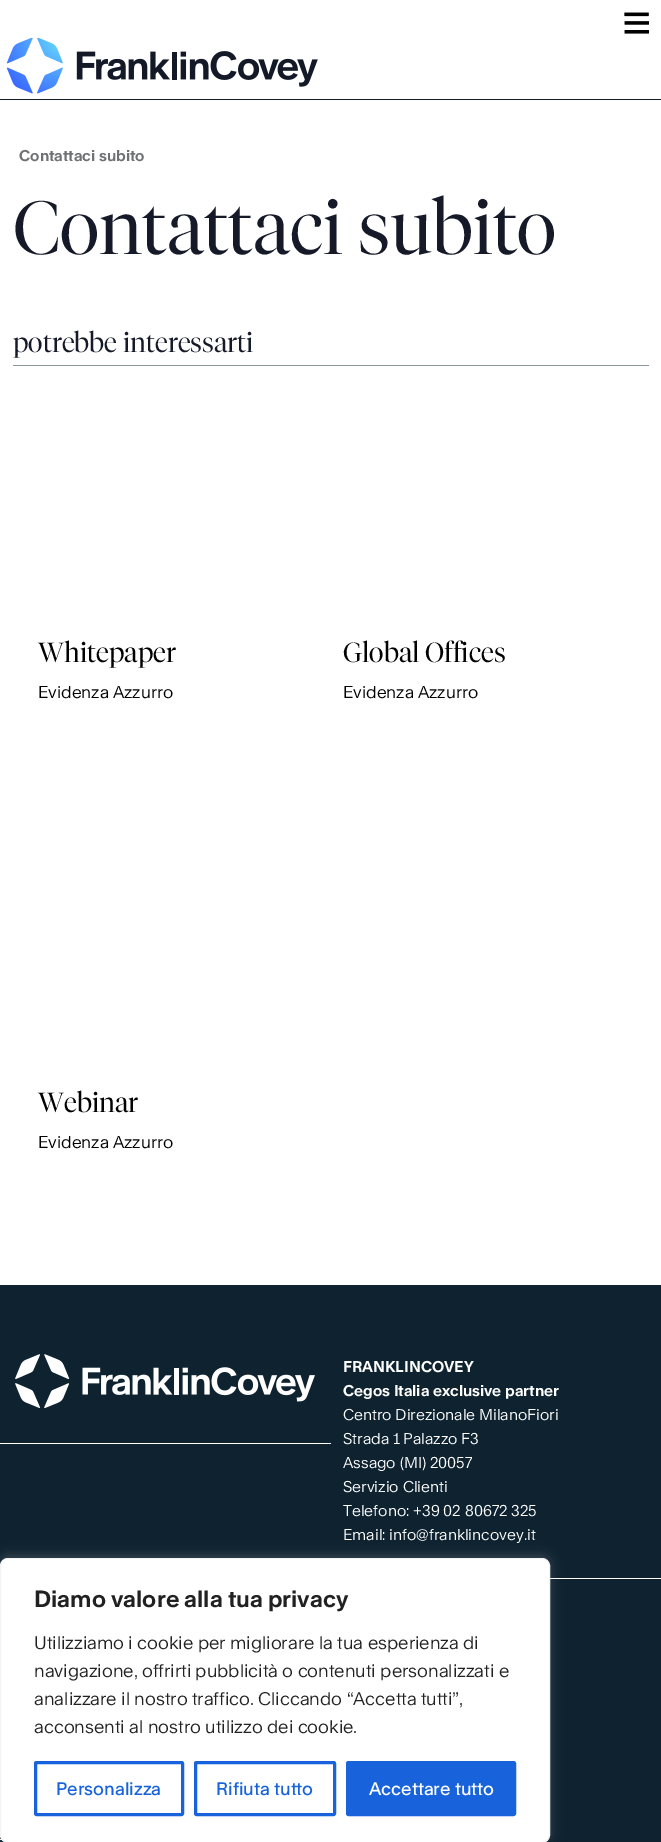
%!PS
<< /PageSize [661 1842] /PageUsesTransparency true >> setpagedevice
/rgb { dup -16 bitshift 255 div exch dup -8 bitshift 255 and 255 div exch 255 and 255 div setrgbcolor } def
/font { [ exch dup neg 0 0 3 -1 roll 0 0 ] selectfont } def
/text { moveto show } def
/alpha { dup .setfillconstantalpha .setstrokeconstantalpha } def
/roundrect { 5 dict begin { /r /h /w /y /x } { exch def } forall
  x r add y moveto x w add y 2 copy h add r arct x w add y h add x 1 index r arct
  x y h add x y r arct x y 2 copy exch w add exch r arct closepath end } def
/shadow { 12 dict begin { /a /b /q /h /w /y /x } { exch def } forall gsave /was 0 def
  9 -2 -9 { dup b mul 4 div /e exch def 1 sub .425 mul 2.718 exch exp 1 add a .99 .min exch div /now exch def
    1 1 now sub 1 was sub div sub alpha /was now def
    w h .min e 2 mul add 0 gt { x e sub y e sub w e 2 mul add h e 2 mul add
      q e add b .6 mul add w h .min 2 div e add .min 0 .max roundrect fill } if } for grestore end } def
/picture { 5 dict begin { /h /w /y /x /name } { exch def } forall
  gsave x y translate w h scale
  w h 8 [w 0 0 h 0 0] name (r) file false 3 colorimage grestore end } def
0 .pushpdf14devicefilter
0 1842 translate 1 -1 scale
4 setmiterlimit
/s1 { /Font-Bold 15 font 16#707173 rgb } def
/s2 { /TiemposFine-Light 75 font 16#151928 rgb } def
/s3 { /TiemposFine-Light 27.5 font 16#151928 rgb } def
/s4 { /TiemposFine-Light 27.5 font 16#000000 rgb } def
/s5 { /Font-Regular 16.5 font 16#000000 rgb } def
/s6 { /Font-Bold 15 font 16#FFFFFF rgb } def
/s7 { /Font-Regular 15 font 16#FFFFFF rgb } def
/s8 { /Font-Bold 22.5 font 16#212121 rgb } def
/s9 { /Font-Regular 17.5 font 16#212121 rgb } def
/s10 { /Font-Medium 17.5 font 16#1863DC rgb } def
/s11 { /Font-Medium 17.5 font 16#FFFFFF rgb } def
16#FFFFFF rgb
0 0 661 1842 rectfill
(pic1.raw) 624 12 26 22 picture
16#151928 rgb
0 99 661 1 rectfill
(pic2.raw) 6 38 312 56 picture
s1
(Contattaci subito) 19 161 text
s2
(Contattaci subito) 13 254 text
16#8B959C rgb
13 365 636 1 rectfill
s3
(potrebbe interessarti) 13 352 text
s4
(Whitepaper) 38 662 text
s5
(Evidenza Azzurro) 38 698 text
s4
(Global Offices) 343 662 text
s5
(Evidenza Azzurro) 343 698 text
s4
(Webinar) 38 1112 text
s5
(Evidenza Azzurro) 38 1148 text
16#0E2230 rgb
0 1285 661 557 rectfill
16#FFFFFF rgb
0 1443 331 1 rectfill
(pic3.raw) 15 1354 300 55 picture
550 1578 111 1 rectfill
s6
(FRANKLINCOVEY) 343 1372 text
(Cegos Italia exclusive partner) 343 1396 text
s7
(Centro Direzionale MilanoFiori) 343 1420 text
(Strada 1 Palazzo F3) 343 1444 text
(Assago \(MI\) 20057) 343 1468 text
(Servizio Clienti) 343 1492 text
(Telefono: +39 02 80672 325) 343 1516 text
(Email: info@franklincovey.it) 343 1540 text
0 1839 2 1 rectfill
16#ACABAB rgb
0 1556 550 285 8 6 0.3 shadow
16#FFFFFF rgb
0.5 1558.5 549 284 7.5 roundrect gsave fill grestore
16#F4F4F4 rgb
stroke
s8
(Diamo valore alla tua privacy) 34 1607 text
s9
(Utilizziamo i cookie per migliorare la tua esperienza di) 34 1649 text
(navigazione, offrirti pubblicità o contenuti personalizzati e) 34 1677 text
(analizzare il nostro traffico. Cliccando “Accetta tutti”,) 34 1705 text
(acconsenti al nostro utilizzo dei cookie.) 34 1733 text
16#1863DC rgb
3 setlinewidth
35.5 1762.5 147 52 1 roundrect stroke
s10
(Personalizza) 56 1795 text
195.5 1762.5 139 52 1 roundrect stroke
(Rifiuta tutto) 216 1795 text
347.5 1762.5 167 52 1 roundrect gsave fill grestore
stroke
s11
(Accettare tutto) 369 1795 text
.poppdf14devicefilter showpage
